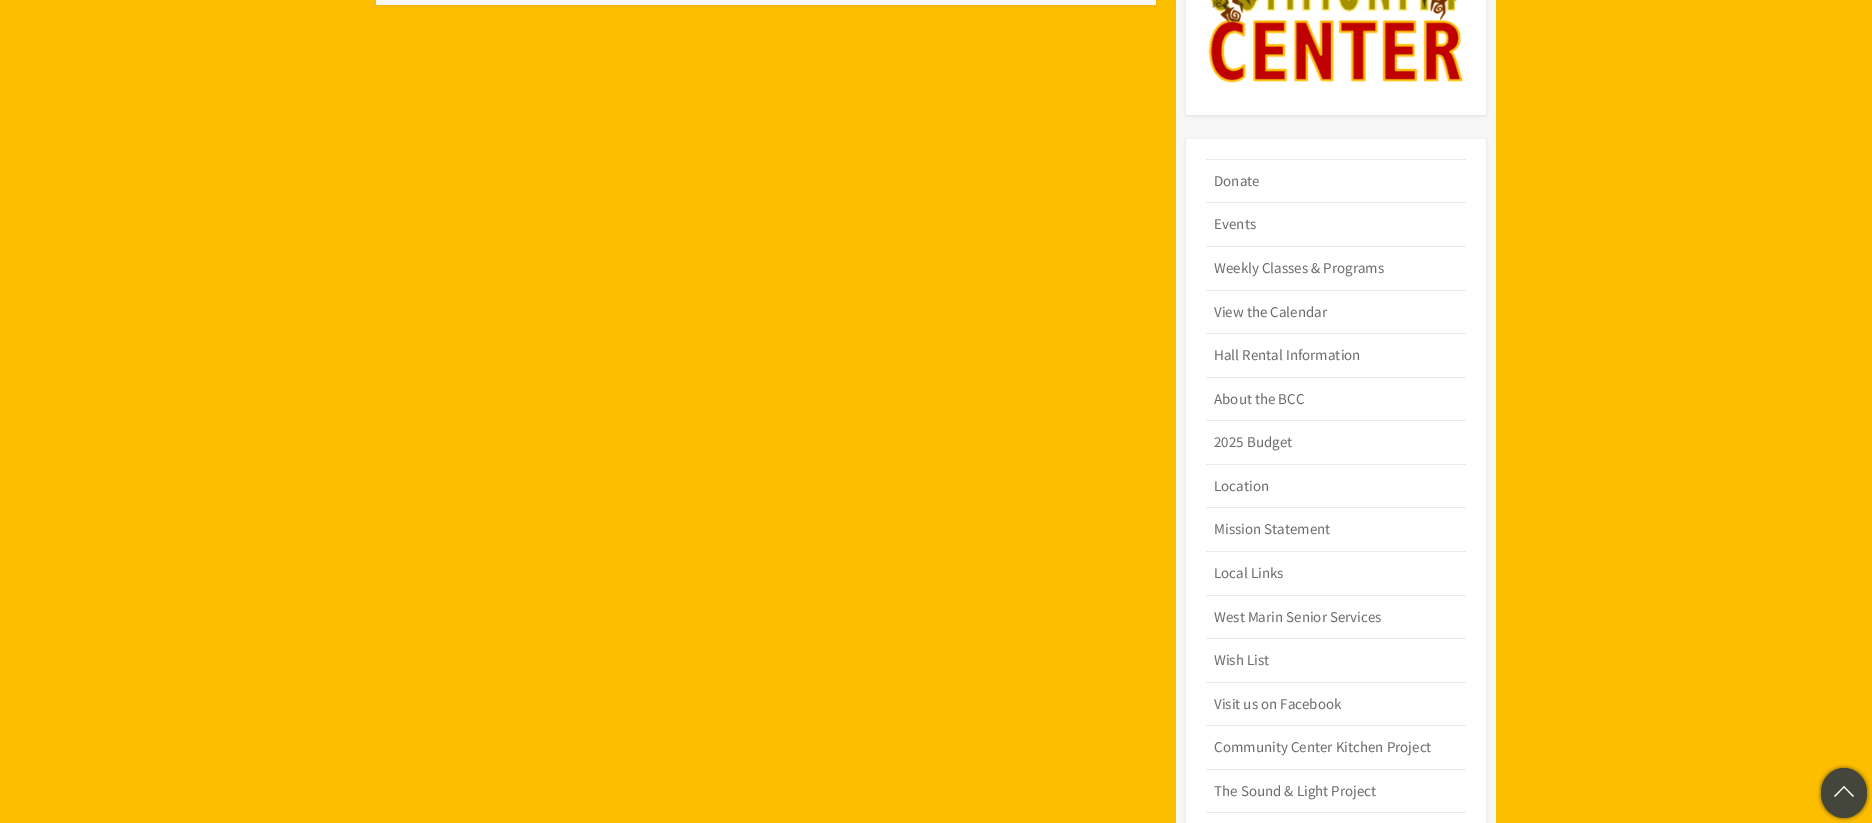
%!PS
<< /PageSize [1872 823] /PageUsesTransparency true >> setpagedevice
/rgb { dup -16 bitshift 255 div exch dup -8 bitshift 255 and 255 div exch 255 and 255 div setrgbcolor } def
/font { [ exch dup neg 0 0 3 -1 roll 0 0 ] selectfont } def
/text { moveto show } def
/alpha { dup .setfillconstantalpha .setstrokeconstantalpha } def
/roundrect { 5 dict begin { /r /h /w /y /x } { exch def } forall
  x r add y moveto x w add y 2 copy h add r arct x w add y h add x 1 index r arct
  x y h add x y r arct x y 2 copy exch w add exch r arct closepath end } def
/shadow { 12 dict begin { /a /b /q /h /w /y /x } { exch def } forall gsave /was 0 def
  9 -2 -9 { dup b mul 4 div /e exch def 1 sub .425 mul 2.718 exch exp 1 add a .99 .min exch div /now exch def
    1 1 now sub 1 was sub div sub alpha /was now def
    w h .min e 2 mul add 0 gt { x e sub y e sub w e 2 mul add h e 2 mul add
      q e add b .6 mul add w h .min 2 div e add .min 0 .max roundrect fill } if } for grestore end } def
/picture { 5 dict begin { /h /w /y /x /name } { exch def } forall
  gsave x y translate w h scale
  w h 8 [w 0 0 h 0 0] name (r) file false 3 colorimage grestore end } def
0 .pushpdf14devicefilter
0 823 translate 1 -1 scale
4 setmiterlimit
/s1 { /SourceSansPro-Regular 15 font 16#6B6B6B rgb } def
16#FEBE00 rgb
0 0 1872 823 rectfill
16#000000 rgb
376 -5 780 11 0 1.5 0.05 shadow
16#F7F7F7 rgb
376 0 780 5 rectfill
1176 0 320 823 rectfill
16#000000 rgb
1186 -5 300 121 0 1.5 0.1 shadow
16#FFFFFF rgb
1186 0 300 115 rectfill
(pic1.raw) 1208 0 256 83 picture
16#000000 rgb
1186 140 300 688 0 1.5 0.1 shadow
16#FFFFFF rgb
1186 139 300 684 rectfill
16#EAEAEA rgb
1206 159 260 1 rectfill
1206 202 260 1 rectfill
s1
(Donate) 1214 186 text
16#EAEAEA rgb
1206 246 260 1 rectfill
s1
(Events) 1214 229 text
16#EAEAEA rgb
1206 290 260 1 rectfill
s1
(Weekly Classes & Programs) 1214 273 text
16#EAEAEA rgb
1206 333 260 1 rectfill
s1
(View the Calendar) 1214 317 text
16#EAEAEA rgb
1206 377 260 1 rectfill
s1
(Hall Rental Information) 1214 360 text
16#EAEAEA rgb
1206 420 260 1 rectfill
s1
(About the BCC) 1214 404 text
16#EAEAEA rgb
1206 464 260 1 rectfill
s1
(2025 Budget) 1214 447 text
16#EAEAEA rgb
1206 507 260 1 rectfill
s1
(Location) 1214 491 text
16#EAEAEA rgb
1206 551 260 1 rectfill
s1
(Mission Statement) 1214 534 text
16#EAEAEA rgb
1206 595 260 1 rectfill
s1
(Local Links) 1214 578 text
16#EAEAEA rgb
1206 638 260 1 rectfill
s1
(West Marin Senior Services) 1214 622 text
16#EAEAEA rgb
1206 682 260 1 rectfill
s1
(Wish List) 1214 665 text
16#EAEAEA rgb
1206 725 260 1 rectfill
s1
(Visit us on Facebook) 1214 709 text
16#EAEAEA rgb
1206 769 260 1 rectfill
s1
(Community Center Kitchen Project) 1214 752 text
16#EAEAEA rgb
1206 812 260 1 rectfill
s1
(The Sound & Light Project) 1214 796 text
16#000000 rgb
1821 768 46 50 23 2 0.6 shadow
16#44463B rgb
1844 768 moveto 1856.5 768 1867 779 1867 793 curveto 1867 807 1856.5 818 1844 818 curveto 1831.5 818 1821 807 1821 793 curveto 1821 779 1831.5 768 1844 768 curveto closepath fill
16#F7F7F7 rgb
1844 786 moveto 1854 796 lineto 1853 797 lineto 1843.5 787 lineto closepath fill
1844 786 moveto 1844.5 787 lineto 1835 797 lineto 1834 796 lineto closepath fill
.poppdf14devicefilter showpage
